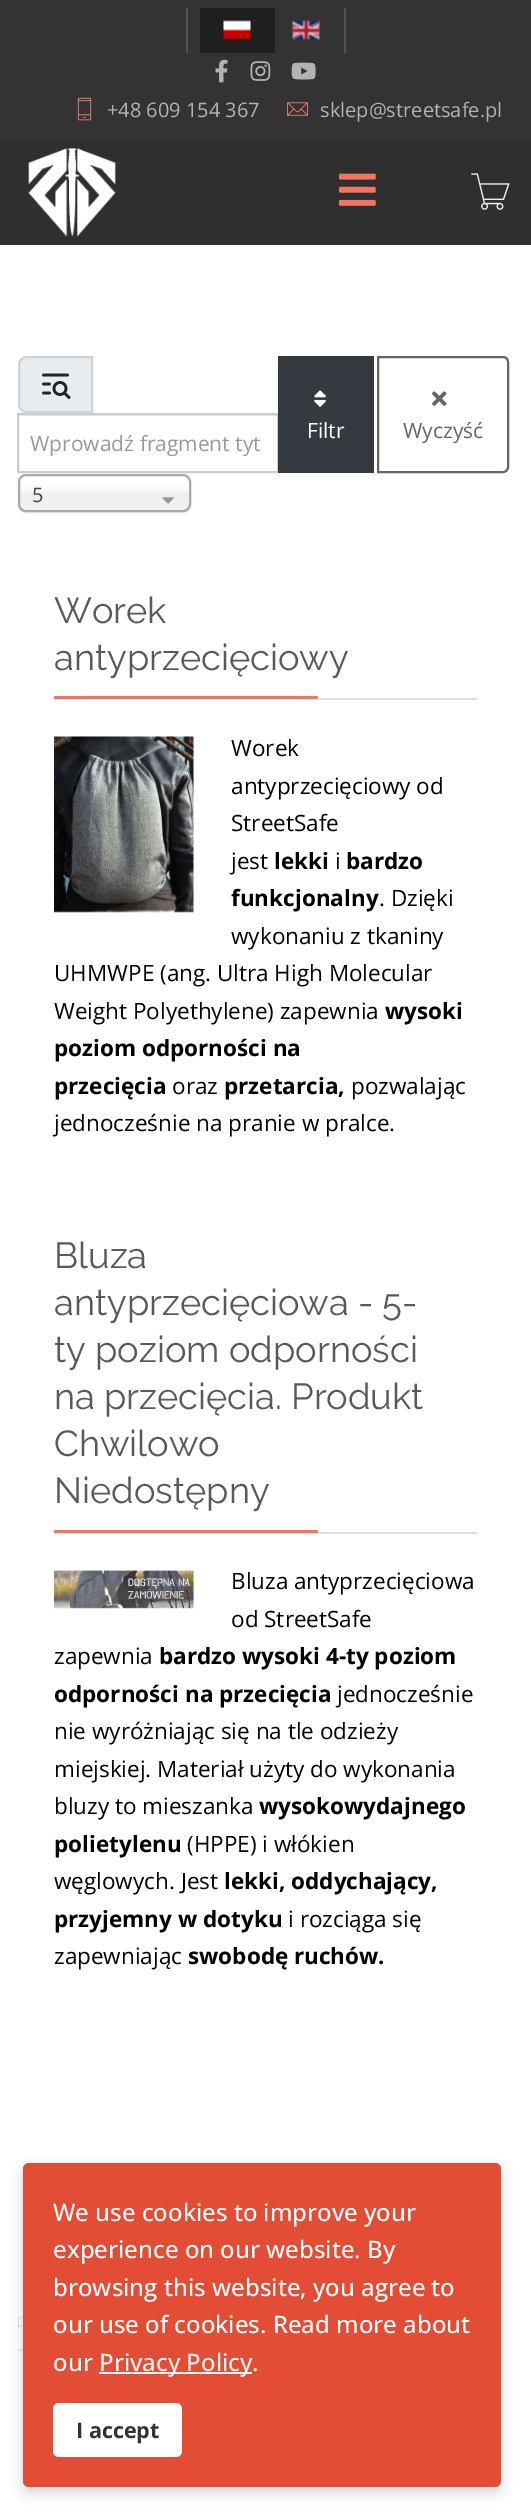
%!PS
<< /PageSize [531 2517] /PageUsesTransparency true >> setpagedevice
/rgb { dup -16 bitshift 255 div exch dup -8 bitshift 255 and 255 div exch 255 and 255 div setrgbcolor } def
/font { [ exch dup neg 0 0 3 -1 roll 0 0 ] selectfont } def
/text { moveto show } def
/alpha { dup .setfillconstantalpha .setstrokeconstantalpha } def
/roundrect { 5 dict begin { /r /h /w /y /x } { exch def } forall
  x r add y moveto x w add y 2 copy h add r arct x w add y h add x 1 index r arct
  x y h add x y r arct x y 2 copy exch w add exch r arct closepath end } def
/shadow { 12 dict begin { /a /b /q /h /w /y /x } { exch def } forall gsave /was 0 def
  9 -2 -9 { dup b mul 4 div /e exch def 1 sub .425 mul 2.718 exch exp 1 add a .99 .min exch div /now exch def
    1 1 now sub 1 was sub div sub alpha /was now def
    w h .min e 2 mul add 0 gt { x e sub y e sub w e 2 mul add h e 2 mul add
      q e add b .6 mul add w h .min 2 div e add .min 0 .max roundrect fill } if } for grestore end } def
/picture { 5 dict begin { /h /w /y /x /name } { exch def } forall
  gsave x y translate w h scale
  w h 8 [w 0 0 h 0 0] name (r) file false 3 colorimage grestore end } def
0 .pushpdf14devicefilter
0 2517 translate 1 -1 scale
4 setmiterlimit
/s1 { /OpenSans-Regular 20 font 16#B3B3B3 rgb } def
/s2 { /OpenSans-Regular 21 font 16#FFFFFF rgb } def
/s3 { /OpenSans-Regular 21 font 16#666666 rgb } def
/s4 { /OpenSans-Regular 21 font 16#999999 rgb } def
/s5 { /OpenSans-Regular 20 font 16#444444 rgb } def
/s6 { /Raleway-Regular 36.25 font 16#595959 rgb } def
/s7 { /OpenSans-Regular 22.5 font 16#000000 rgb } def
/s8 { /OpenSans-Bold 22.5 font 16#000000 rgb } def
/s9 { /OpenSans-Medium 24 font 16#FFFFFF rgb } def
/s10 { /OpenSans-Medium 24 font 16#F5F5F5 rgb } def
/s11 { /OpenSans-Bold 21.5 font 16#333333 rgb } def
16#FFFFFF rgb
0 0 531 2517 rectfill
16#333333 rgb
0 0 531 140 rectfill
16#525252 rgb
344 8 2 45 rectfill
186 8 2 45 rectfill
16#1F1F1F rgb
200 8 75 45 rectfill
(pic1.raw) 223 20 28 20 picture
(pic2.raw) 292 20 28 20 picture
(pic3.raw) 215 59 13 24 picture
(pic4.raw) 250 61 21 20 picture
(pic5.raw) 291 62 25 18 picture
(pic6.raw) 77 97 15 24 picture
s1
(+48 609 154 367) 107 117 text
(pic7.raw) 287 102 21 14 picture
(sklep@streetsafe.pl) 320 117 text
16#2F2F2F rgb
0 140 531 105 rectfill
(pic8.raw) 28 148 88 89 picture
(pic9.raw) 339 173 37 33 picture
(pic10.raw) 471 173 39 37 picture
16#ECECEC rgb
18 415 260 1 rectfill
16#CCCCCC rgb
2 setlinewidth
18 414 260 58 rectstroke
16#343A40 rgb
278 356 96 117 rectfill
(pic11.raw) 314 390 12 17 picture
s2
(Filtr) 307 438 text
16#666666 rgb
378 357 moveto 503 357 lineto 506 357 508 359 508 362 curveto 508 467 lineto 508 470 506 472 503 472 curveto 378 472 lineto closepath stroke
(pic12.raw) 432 391 15 15 picture
(Wyczyść) 403 438 text
16#E9ECEF rgb
27 357 moveto 92 357 lineto 92 412 lineto 27 412 lineto 22.5 412 19 408.5 19 404 curveto 19 365 lineto 19 360.5 22.5 357 27 357 curveto closepath gsave fill grestore
16#CED4DA rgb
stroke
(pic13.raw) 42 373 29 26 picture
s4
(Wprowadź fragment tyt) 30 451 text
16#000000 rgb
18 476 173 37 8 1 0.1 shadow
gsave 20 476 169 34 6 roundrect clip newpath
<< /ShadingType 2 /ColorSpace /DeviceRGB /Coords [104 476 104 510] /Extend [true true] /Function << /FunctionType 3 /Domain [0 1] /Functions [<< /FunctionType 2 /Domain [0 1] /C0 [1 1 1] /C1 [1 1 1] /N 1 >> << /FunctionType 2 /Domain [0 1] /C0 [1 1 1] /C1 [0.965 0.965 0.965] /N 1 >> << /FunctionType 2 /Domain [0 1] /C0 [0.965 0.965 0.965] /C1 [0.933 0.933 0.933] /N 1 >> << /FunctionType 2 /Domain [0 1] /C0 [0.933 0.933 0.933] /C1 [0.957 0.957 0.957] /N 1 >>] /Bounds [0.2 0.5 0.52] /Encode [0 1 0 1 0 1 0 1] >> >> shfill grestore
16#AAAAAA rgb
19 475 171 36 7 roundrect stroke
s5
(5) 32 502 text
(pic14.raw) 162 497 12 7 picture
16#DDDDDD rgb
54 698 423 2 rectfill
s6
(Worek) 54 623 text
(antyprzecięciowy) 54 670 text
16#F47363 rgb
54 696 264 3 1.5 roundrect fill
(pic15.raw) 54 736 140 177 picture
s7
(Worek) 231 756 text
(antyprzecięciowy od) 231 794 text
(StreetSafe) 231 831 text
(jest) 231 869 text
s8
(lekki) 274 869 text
s7
(i) 335 869 text
s8
(bardzo) 346 869 text
(funkcjonalny) 231 906 text
s7
(. Dzięki) 379 906 text
(wykonaniu z tkaniny) 231 944 text
(UHMWPE \(ang. Ultra High Molecular) 54 981 text
(Weight Polyethylene\) zapewnia) 54 1019 text
s8
(wysoki) 385 1019 text
(poziom odporności na) 54 1056 text
(przecięcia) 54 1094 text
s7
(oraz) 172 1094 text
s8
(przetarcia,) 224 1094 text
s7
(pozwalając) 351 1094 text
(jednocześnie na pranie w pralce.) 54 1131 text
16#DDDDDD rgb
54 1532 423 2 rectfill
s6
(Bluza) 54 1268 text
(antyprzecięciowa - 5-) 54 1315 text
(ty poziom odporności) 54 1362 text
(na przecięcia. Produkt) 54 1409 text
(Chwilowo) 54 1456 text
(Niedostępny) 54 1503 text
16#F47363 rgb
54 1530 264 3 1.5 roundrect fill
(pic16.raw) 54 1570 140 39 picture
s7
(Bluza antyprzecięciowa) 231 1589 text
(od StreetSafe) 231 1627 text
(zapewnia) 54 1664 text
s8
(bardzo wysoki 4-ty poziom) 159 1664 text
(odporności na przecięcia) 54 1702 text
s7
(jednocześnie) 337 1702 text
(nie wyróżniając się na tle odzieży) 54 1739 text
(miejskiej. Materiał użyty do wykonania) 54 1777 text
(bluzy to mieszanka) 54 1814 text
s8
(wysokowydajnego) 259 1814 text
(polietylenu) 54 1852 text
s7
(\(HPPE\) i włókien) 187 1852 text
(węglowych. Jest) 54 1889 text
s8
(lekki, oddychający,) 224 1889 text
(przyjemny w dotyku) 54 1927 text
s7
(i rozciąga się) 288 1927 text
(zapewniając) 54 1964 text
s8
(swobodę ruchów.) 188 1964 text
16#E8E8E8 rgb
18 2349 5 2 rectfill
(pic17.raw) 18 2316 5 12 picture
16#323232 rgb
23 2169 478 324 6 6 0.2 shadow
16#E34C35 rgb
23 2163 478 324 6 roundrect fill
s9
(We use cookies to improve your) 53 2221 text
(experience on our website. By) 53 2258 text
(browsing this website, you agree to) 53 2296 text
(our use of cookies. Read more about) 53 2333 text
(our) 53 2371 text
16#F5F5F5 rgb
99 2372 153 2 rectfill
(Privacy Policy) 99 2371 text
s9
(.) 252 2371 text
53 2403 129 54 6 roundrect fill
s11
(I accept) 76 2438 text
.poppdf14devicefilter showpage
